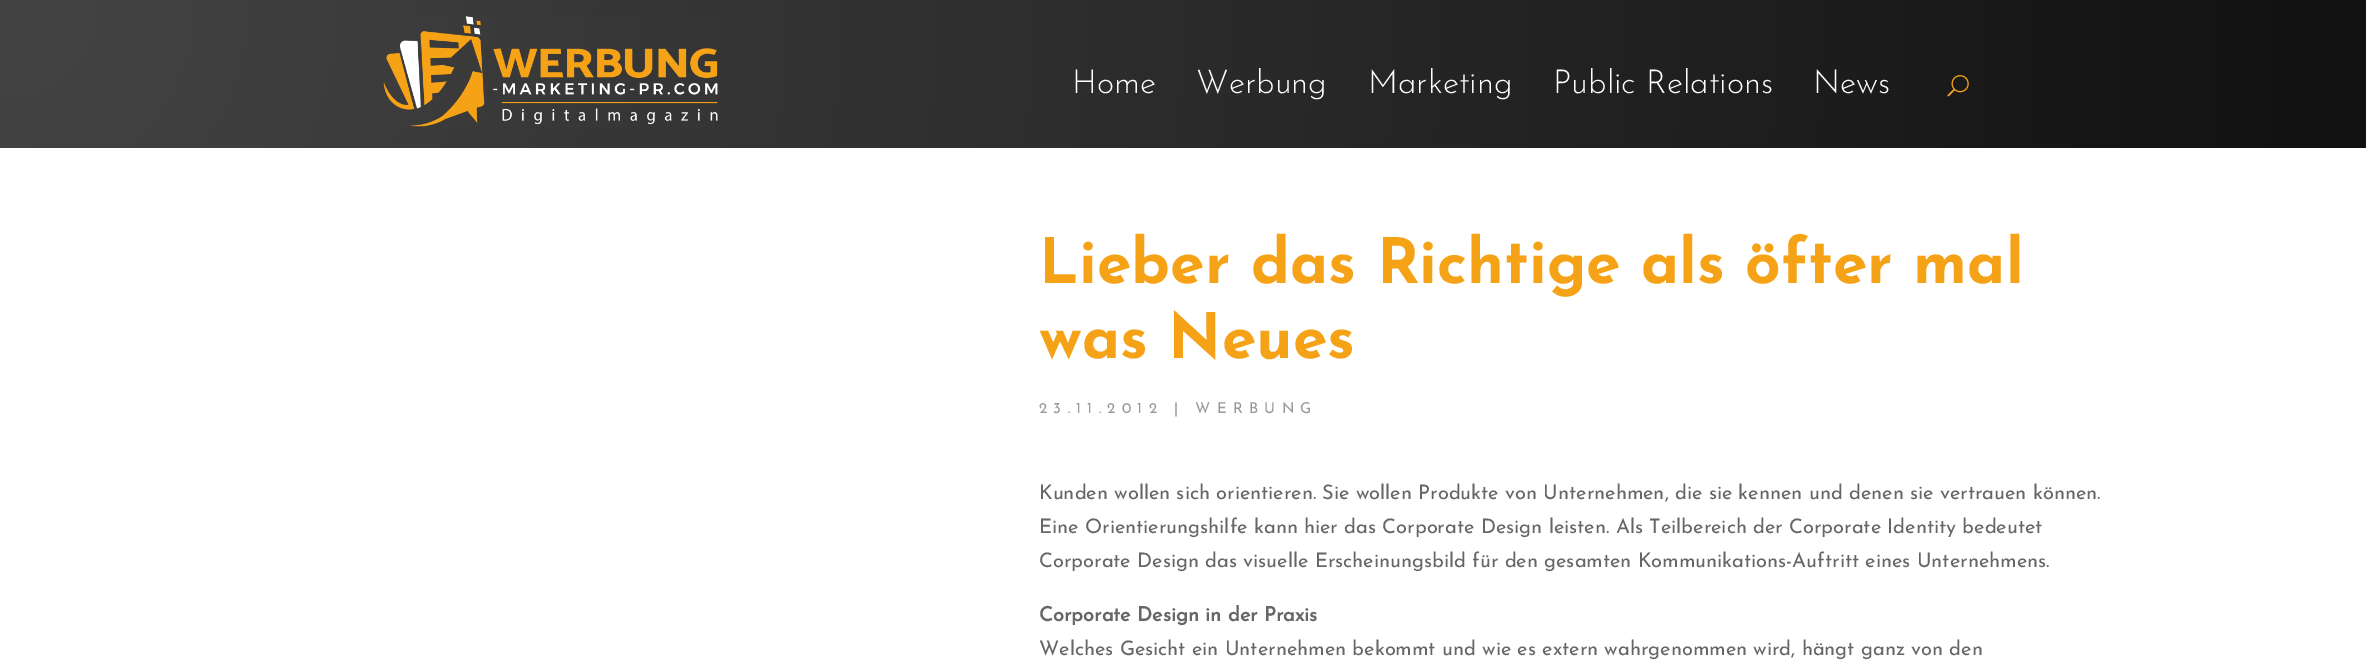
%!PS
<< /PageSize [2366 662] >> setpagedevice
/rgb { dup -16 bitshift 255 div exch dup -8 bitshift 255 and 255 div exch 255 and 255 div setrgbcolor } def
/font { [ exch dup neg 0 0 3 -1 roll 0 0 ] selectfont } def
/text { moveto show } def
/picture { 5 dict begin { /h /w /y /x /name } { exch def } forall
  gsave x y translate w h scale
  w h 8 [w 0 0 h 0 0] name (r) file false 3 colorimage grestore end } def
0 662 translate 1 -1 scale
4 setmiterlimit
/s1 { /JosefinSans-Light 33 font 16#FFFFFF rgb } def
/s2 { /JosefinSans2-Bold 62.5 font 16#F5A216 rgb } def
/s3 { /JosefinSans-Regular 20 font 16#666666 rgb } def
/s4 { /JosefinSans-Bold 20 font 16#666666 rgb } def
16#FFFFFF rgb
0 0 2366 662 rectfill
gsave 0 0 moveto 2366 0 lineto 2366 148 lineto 0 148 lineto closepath clip newpath 0 0 translate 2371 2371 scale
<< /ShadingType 3 /ColorSpace /DeviceRGB /Coords [0 0 0 0 0 1] /Extend [true true] /Function << /FunctionType 2 /Domain [0 1] /C0 [0.267 0.267 0.267] /C1 [0.067 0.067 0.067] /N 1 >> >> shfill grestore
(pic1.raw) 383 16 335 111 picture
s1
(Home) 1072 93 text
(Werbung) 1196 93 text
(Marketing) 1368 93 text
(Public Relations) 1553 93 text
(News) 1813 93 text
(pic2.raw) 1947 75 22 22 picture
s2
(Lieber das Richtige als öfter mal) 1039 283 text
(was Neues) 1039 358 text
/JosefinSans-Regular 15 font
16#999999 rgb
1039 413 moveto 6.25 0 (23.11.2012 | WERBUNG) ashow
s3
(Kunden wollen sich orientieren. Sie wollen Produkte von Unternehmen, die sie kennen und denen sie vertrauen können.) 1039 499 text
(Eine Orientierungshilfe kann hier das Corporate Design leisten. Als Teilbereich der Corporate Identity bedeutet) 1039 533 text
(Corporate Design das visuelle Erscheinungsbild für den gesamten Kommunikations-Auftritt eines Unternehmens.) 1039 567 text
s4
(Corporate Design in der Praxis) 1039 621 text
s3
(Welches Gesicht ein Unternehmen bekommt und wie es extern wahrgenommen wird, hängt ganz von den) 1039 655 text
showpage
